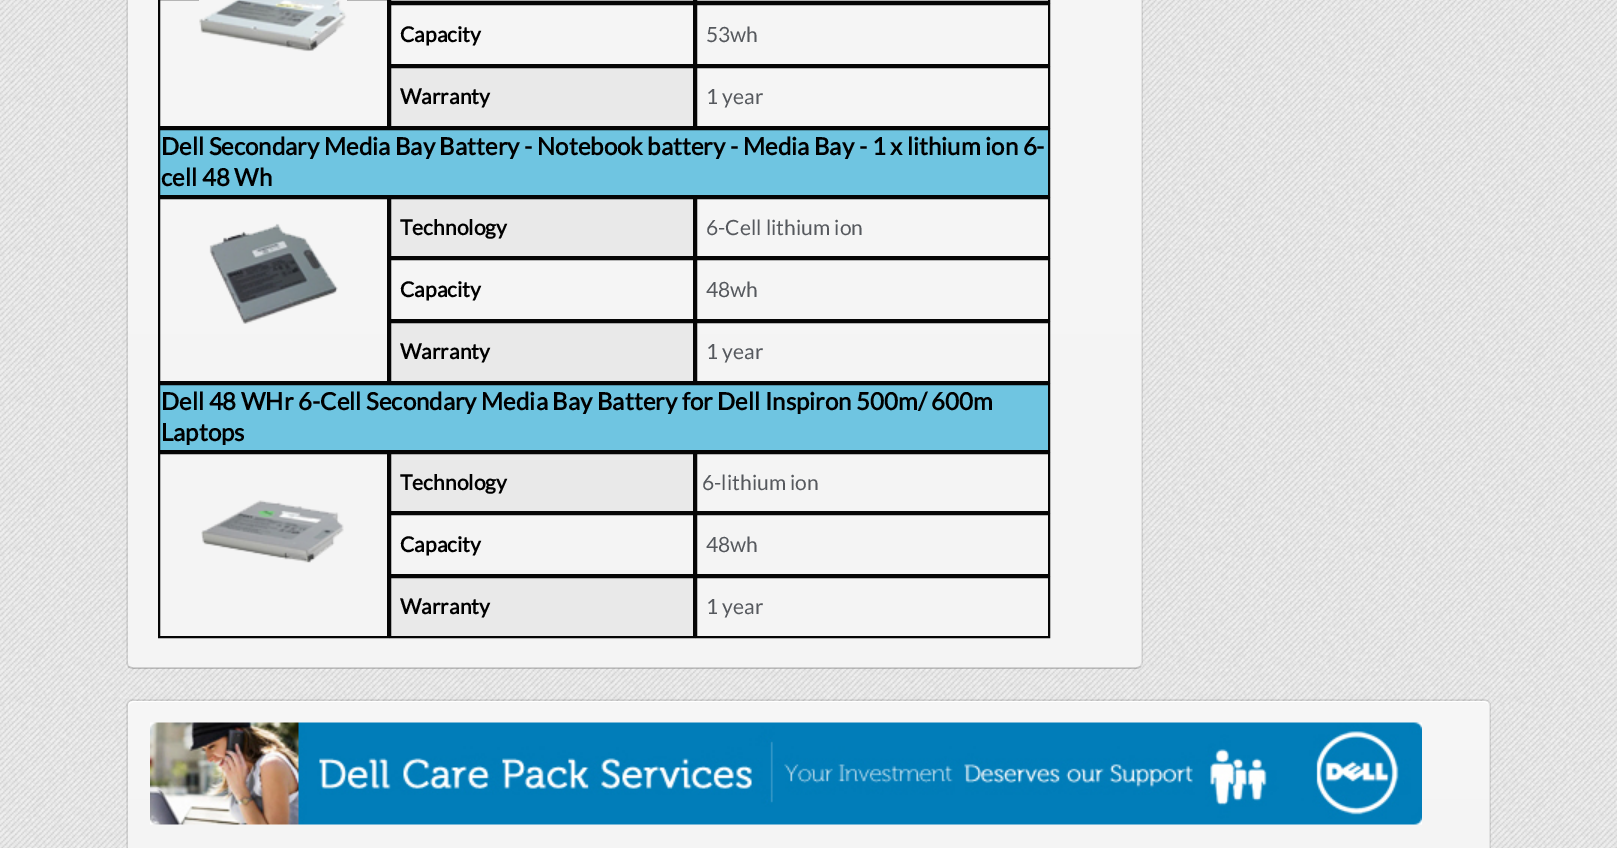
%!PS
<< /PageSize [1617 848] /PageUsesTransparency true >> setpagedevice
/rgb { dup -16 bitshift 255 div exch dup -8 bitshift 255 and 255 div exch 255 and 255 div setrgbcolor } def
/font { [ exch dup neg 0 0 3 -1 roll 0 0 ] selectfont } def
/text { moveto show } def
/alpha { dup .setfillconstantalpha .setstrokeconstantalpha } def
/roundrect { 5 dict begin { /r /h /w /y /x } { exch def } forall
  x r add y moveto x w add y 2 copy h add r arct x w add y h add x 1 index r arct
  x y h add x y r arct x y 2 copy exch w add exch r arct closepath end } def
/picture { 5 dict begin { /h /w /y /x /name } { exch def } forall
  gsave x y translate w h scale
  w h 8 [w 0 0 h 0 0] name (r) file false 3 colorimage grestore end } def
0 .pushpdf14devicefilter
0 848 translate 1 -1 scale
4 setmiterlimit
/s1 { /Lato-Bold 21 font 16#000000 rgb } def
/s2 { /Lato-Regular 21 font 16#56595E rgb } def
/s3 { /Lato-Bold 24 font 16#000000 rgb } def
16#FFFFFF rgb
0 0 1617 848 rectfill
(pic1.raw) 0 0 1617 848 picture
gsave 128 -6 1014 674 6 roundrect clip newpath
<< /ShadingType 2 /ColorSpace /DeviceRGB /Coords [634 -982 635 668] /Extend [true true] /Function << /FunctionType 2 /Domain [0 1] /C0 [0.969 0.969 0.969] /C1 [0.957 0.957 0.957] /N 1 >> >> shfill grestore
0.2 alpha
16#000000 rgb
1.5 setlinewidth
1140.5 666.5 moveto 1139 667.5 1137.5 668 1135.5 668 curveto 133.5 668 lineto 131.5 668 130 667.5 128.5 666.5 curveto stroke
0.1 alpha
128.5 666.5 moveto 127.5 665 127 663.5 127 661.5 curveto 127 -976.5 lineto 127 -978.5 127.5 -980 128.5 -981.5 curveto 130 -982.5 131.5 -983 133.5 -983 curveto 1135.5 -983 lineto 1137.5 -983 1139 -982.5 1140.5 -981.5 curveto 1141.5 -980 1142 -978.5 1142 -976.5 curveto 1142 661.5 lineto 1142 663.5 1141.5 665 1140.5 666.5 curveto stroke
1 alpha
16#050505 rgb
2 setlinewidth
159 -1 229 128 rectstroke
(pic2.raw) 199 0 148 52 picture
16#E9E9E9 rgb
390 -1 moveto 694 -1 lineto 694 2 lineto 390 2 lineto closepath gsave fill grestore
16#050505 rgb
stroke
696 -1 353 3 rectstroke
390 4 304 61 rectstroke
s1
(Capacity) 400 42 text
16#050505 rgb
696 4 353 61 rectstroke
s2
(53wh) 706 42 text
16#E9E9E9 rgb
390 67 moveto 694 67 lineto 694 127 lineto 390 127 lineto closepath gsave fill grestore
16#050505 rgb
stroke
s1
(Warranty) 400 104 text
16#050505 rgb
696 67 353 60 rectstroke
s2
(1 year) 706 104 text
16#6FC5E1 rgb
159 129 moveto 1049 129 lineto 1049 196 lineto 159 196 lineto closepath gsave fill grestore
16#040404 rgb
stroke
s3
(Dell Secondary Media Bay Battery - Notebook battery - Media Bay - 1 x lithium ion 6-) 161 155 text
(cell 48 Wh) 161 186 text
16#050505 rgb
159 198 229 184 rectstroke
(pic3.raw) 209 223 129 101 picture
16#E9E9E9 rgb
390 198 moveto 694 198 lineto 694 257 lineto 390 257 lineto closepath gsave fill grestore
16#050505 rgb
stroke
s1
(Technology) 400 235 text
16#050505 rgb
696 198 353 59 rectstroke
s2
(6-Cell lithium ion) 706 235 text
16#050505 rgb
390 259 304 61 rectstroke
s1
(Capacity) 400 297 text
16#050505 rgb
696 259 353 61 rectstroke
s2
(48wh) 706 297 text
16#E9E9E9 rgb
390 322 moveto 694 322 lineto 694 382 lineto 390 382 lineto closepath gsave fill grestore
16#050505 rgb
stroke
s1
(Warranty) 400 359 text
16#050505 rgb
696 322 353 60 rectstroke
s2
(1 year) 706 359 text
16#6FC5E1 rgb
159 384 moveto 1049 384 lineto 1049 451 lineto 159 451 lineto closepath gsave fill grestore
16#040404 rgb
stroke
s3
(Dell 48 WHr 6-Cell Secondary Media Bay Battery for Dell Inspiron 500m/ 600m) 161 410 text
(Laptops) 161 441 text
16#050505 rgb
159 453 229 184 rectstroke
(pic4.raw) 201 500 143 63 picture
16#E9E9E9 rgb
390 453 moveto 694 453 lineto 694 512 lineto 390 512 lineto closepath gsave fill grestore
16#050505 rgb
stroke
s1
(Technology) 400 490 text
16#050505 rgb
696 453 353 59 rectstroke
s2
(6-lithium ion) 702 490 text
16#050505 rgb
390 514 304 61 rectstroke
s1
(Capacity) 400 552 text
16#050505 rgb
696 514 353 61 rectstroke
s2
(48wh) 706 552 text
16#E9E9E9 rgb
390 577 moveto 694 577 lineto 694 637 lineto 390 637 lineto closepath gsave fill grestore
16#050505 rgb
stroke
s1
(Warranty) 400 614 text
16#050505 rgb
696 577 353 60 rectstroke
s2
(1 year) 706 614 text
gsave 128 701 1362 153 6 roundrect clip newpath
<< /ShadingType 2 /ColorSpace /DeviceRGB /Coords [809 700 809 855] /Extend [true true] /Function << /FunctionType 2 /Domain [0 1] /C0 [0.969 0.969 0.969] /C1 [0.957 0.957 0.957] /N 1 >> >> shfill grestore
16#FFFFFF rgb
134 702 moveto 1484 702 lineto 1487 702 1490 705 1490 708 curveto 1490 704 1488 701 1484 701 curveto 134 701 lineto 130 701 128 704 128 708 curveto 128 705 130 702 134 702 curveto closepath fill
0.1 alpha
16#000000 rgb
1.5 setlinewidth
128.5 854 moveto 127.5 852.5 127 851 127 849 curveto 127 706.5 lineto 127 704.5 127.5 703 128.5 701.5 curveto 130 700.5 131.5 700 133.5 700 curveto 1483.5 700 lineto 1485.5 700 1487 700.5 1488.5 701.5 curveto 1489.5 703 1490 704.5 1490 706.5 curveto 1490 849 lineto 1490 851 1489.5 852.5 1488.5 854 curveto stroke
1 alpha
(pic5.raw) 150 722 1272 103 picture
.poppdf14devicefilter showpage
